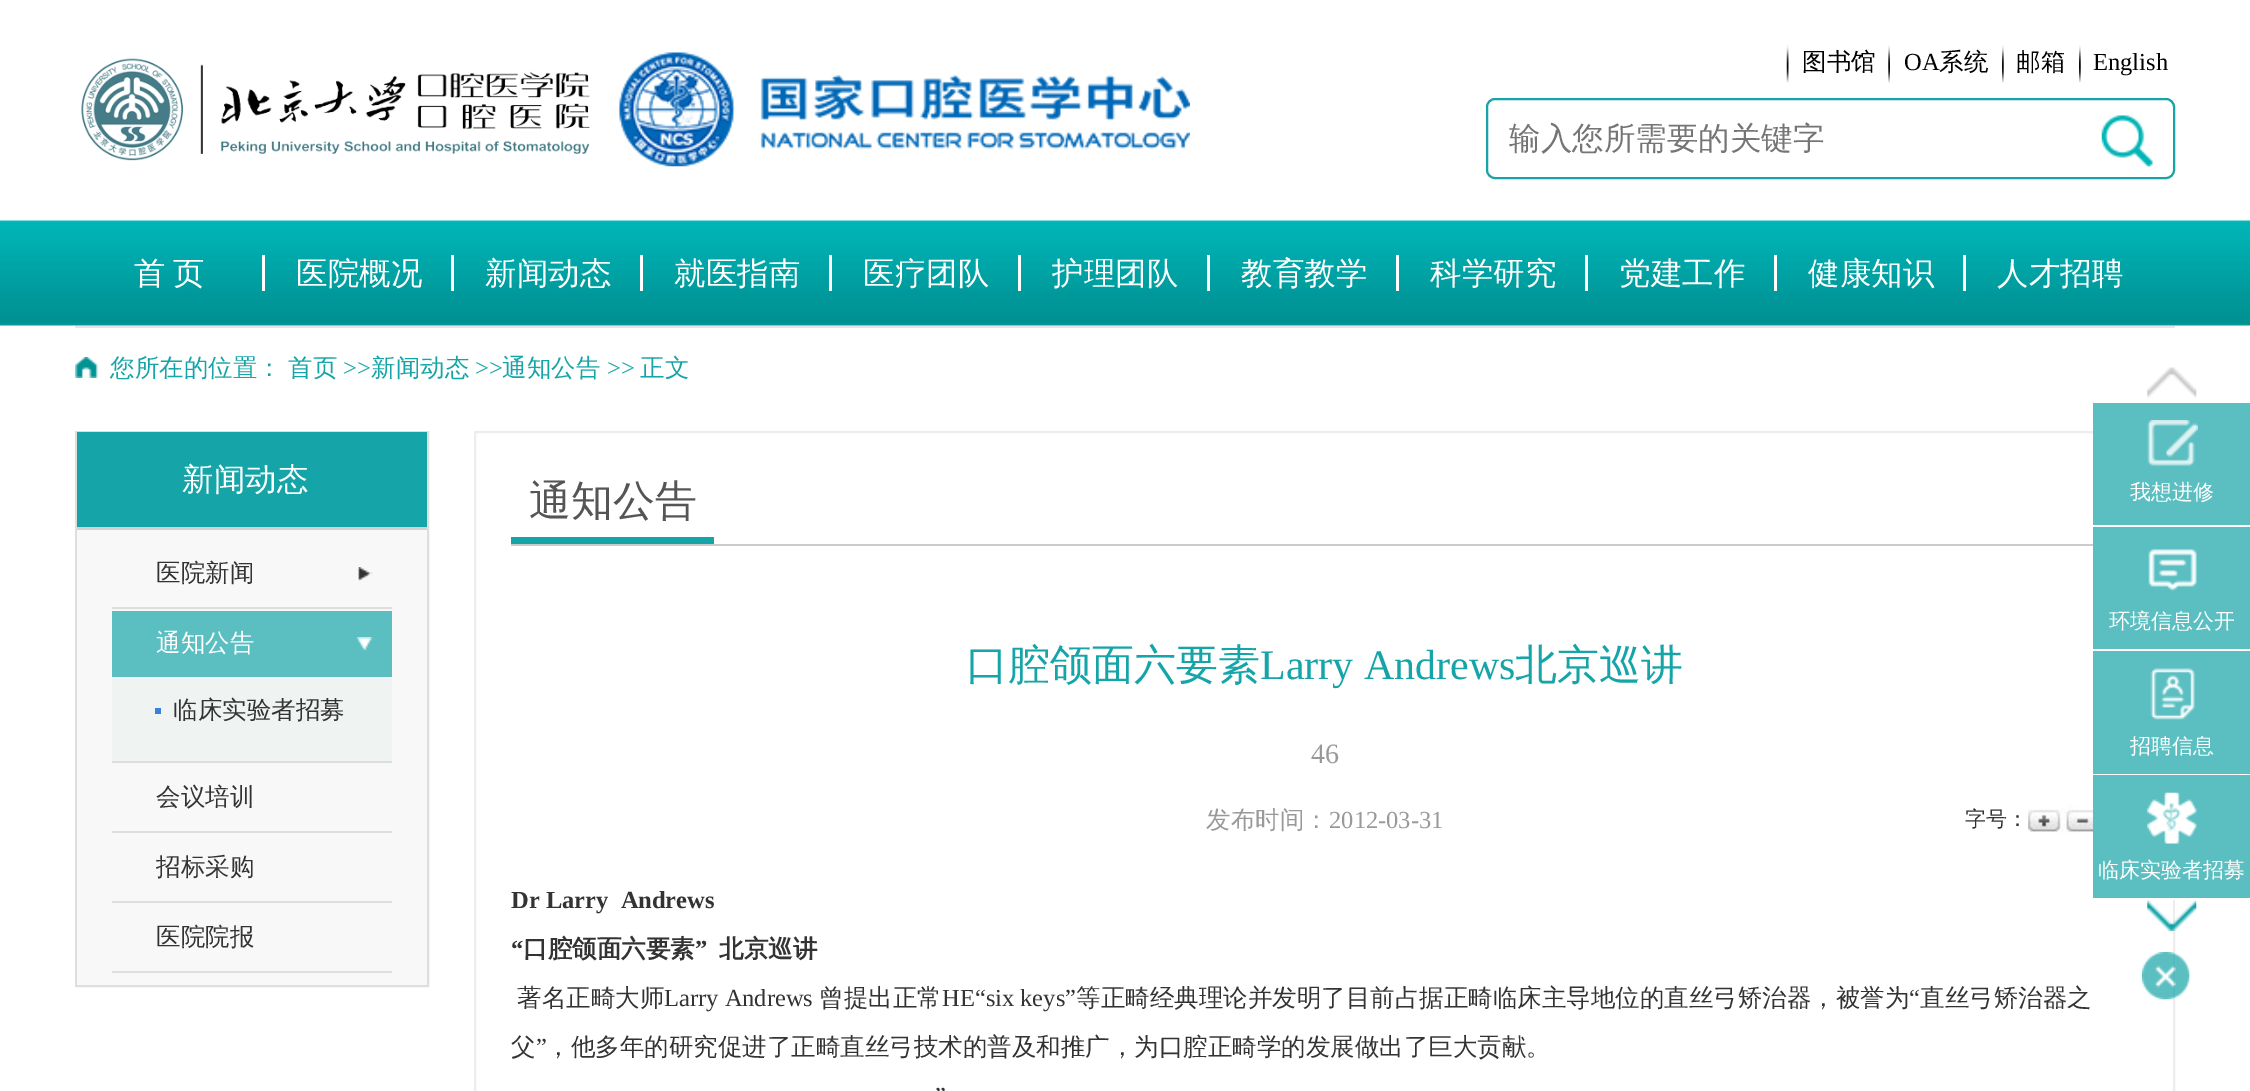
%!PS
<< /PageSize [2250 1091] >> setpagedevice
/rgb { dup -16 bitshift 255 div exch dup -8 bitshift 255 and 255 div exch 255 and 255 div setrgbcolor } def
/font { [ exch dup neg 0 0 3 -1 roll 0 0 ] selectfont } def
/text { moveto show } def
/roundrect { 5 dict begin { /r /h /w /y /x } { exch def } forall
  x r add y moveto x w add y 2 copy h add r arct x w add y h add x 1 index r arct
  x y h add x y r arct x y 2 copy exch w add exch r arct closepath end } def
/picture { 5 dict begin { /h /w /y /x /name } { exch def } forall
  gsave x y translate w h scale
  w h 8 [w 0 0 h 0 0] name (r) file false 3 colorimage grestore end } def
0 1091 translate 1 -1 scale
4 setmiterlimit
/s1 { /WenQuanYiZenHei-Medium 24.5 font 16#000000 rgb } def
/s2 { /LiberationSerif-Regular 24.5 font 16#000000 rgb } def
/s3 { /WenQuanYiZenHei-Medium 31.5 font 16#757575 rgb } def
/s4 { /WenQuanYiZenHei-Medium 31.5 font 16#FFFFFF rgb } def
/s5 { /WenQuanYiZenHei-Medium 24.5 font 16#15A4A8 rgb } def
/s6 { /LiberationSerif-Regular 24.5 font 16#15A4A8 rgb } def
/s7 { /WenQuanYiZenHei-Medium 24.5 font 16#333333 rgb } def
/s8 { /WenQuanYiZenHei-Medium 24.5 font 16#FFFFFF rgb } def
/s9 { /WenQuanYiZenHei-Medium 42 font 16#555555 rgb } def
/s10 { /WenQuanYiZenHei-Medium 42 font 16#15A4A8 rgb } def
/s11 { /LiberationSerif-Regular 42 font 16#15A4A8 rgb } def
/s12 { /LiberationSerif-Regular 28 font 16#999999 rgb } def
/s13 { /WenQuanYiZenHei-Medium 24.5 font 16#999999 rgb } def
/s14 { /LiberationSerif-Regular 24.5 font 16#999999 rgb } def
/s15 { /WenQuanYiZenHei-Medium 21 font 16#333333 rgb } def
/s16 { /LiberationSerif-Bold 24.5 font 16#333333 rgb } def
/s17 { /WenQuanYiZenHei-Bold 24.5 font 16#333333 rgb } def
/s18 { /LiberationSerif-Regular 24.5 font 16#333333 rgb } def
/s19 { /WenQuanYiZenHei-Medium 21 font 16#FFFFFF rgb } def
16#FFFFFF rgb
0 0 2250 1091 rectfill
(pic1.raw) 81 58 509 103 picture
(pic2.raw) 619 52 571 115 picture
(pic3.raw) 1786 45 3 38 picture
s1
(图书馆) 1802 70 text
(pic4.raw) 1888 45 2 38 picture
s2
(OA) 1904 70 text
s1
(系统) 1939 70 text
(pic5.raw) 2002 45 2 38 picture
(邮箱) 2016 70 text
(pic5.raw) 2079 45 2 38 picture
s2
(English) 2093 70 text
16#15A4A8 rgb
2 setlinewidth
1487 99 687 79 8 roundrect stroke
gsave
1509 117 665 42 rectclip
s3
(输入您所需要的关键字) 1509 149 text
grestore
(pic6.raw) 2101 115 52 52 picture
(pic7.raw) 0 220 2250 106 picture
16#E5E5E5 rgb
75 326 2100 2 rectfill
16#FFFFFF rgb
262 255 3 36 rectfill
/WenQuanYiZenHei-Medium 31.5 font
134 284 moveto -2 0 32 (首 页) widthshow
451 255 3 36 rectfill
(医院概况) 296 284 text
640 255 3 36 rectfill
(新闻动态) 485 284 text
829 255 3 36 rectfill
(就医指南) 674 284 text
1018 255 3 36 rectfill
(医疗团队) 863 284 text
1207 255 3 36 rectfill
(护理团队) 1052 284 text
1396 255 3 36 rectfill
(教育教学) 1241 284 text
1585 255 3 36 rectfill
(科学研究) 1430 284 text
1774 255 3 36 rectfill
(党建工作) 1619 284 text
1963 255 3 36 rectfill
(健康知识) 1808 284 text
(人才招聘) 1997 284 text
(pic8.raw) 75 357 23 21 picture
s5
(您所在的位置：) 110 376 text
(首页) 288 376 text
s6
(>>) 343 376 text
s5
(新闻动态) 371 376 text
s6
(>>) 475 376 text
s5
(通知公告) 502 376 text
s6
(>>) 607 376 text
s5
(正文) 640 376 text
16#DEDEDE rgb
76 432 352 554 rectstroke
16#15A4A8 rgb
77 432 350 95 rectfill
16#D2D2D2 rgb
77 527 350 3 rectfill
s4
(新闻动态) 182 490 text
16#F8F8F8 rgb
77 530 350 455 rectfill
16#DEDEDE rgb
112 607 280 2 rectfill
(pic9.raw) 358 567 15 14 picture
s7
(医院新闻) 156 581 text
16#DEDEDE rgb
112 761 280 2 rectfill
16#5BBFC2 rgb
112 611 280 66 rectfill
(pic10.raw) 357 637 16 14 picture
s8
(通知公告) 156 651 text
16#EFF3F1 rgb
112 677 280 84 rectfill
16#3783DB rgb
155 708 6 6 rectfill
s7
(临床实验者招募) 173 718 text
16#DEDEDE rgb
112 831 280 2 rectfill
s7
(会议培训) 156 805 text
16#DEDEDE rgb
112 901 280 2 rectfill
s7
(招标采购) 156 875 text
16#DEDEDE rgb
112 971 280 2 rectfill
s7
(医院院报) 156 945 text
16#EDEDED rgb
475 432 1699 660 rectstroke
16#CCCCCC rgb
511 544 1582 2 rectfill
s9
(通知公告) 529 515 text
16#15A4A8 rgb
511 537 203 7 rectfill
(口腔颌面六要素) 966 679 text
s11
(Larry Andrews) 1260 679 text
s10
(北京巡讲) 1515 679 text
s12
(46) 1311 763 text
s13
(发布时间：) 1206 828 text
s14
(2012-03-31) 1329 828 text
s15
(字号：) 1965 826 text
(pic11.raw) 2028 809 35 24 picture
(pic12.raw) 2063 805 30 28 picture
s16
(Dr Larry  Andrews) 511 908 text
(“) 511 957 text
s17
(口腔颌面六要素) 523 957 text
s16
(”) 695 957 text
s17
(北京巡讲) 719 957 text
s7
(著名正畸大师) 517 1006 text
s18
(Larry Andrews) 664 1006 text
s7
(曾提出正常) 819 1006 text
s18
(HE“six keys”) 942 1006 text
s7
(等正畸经典理论并发明了目前占据正畸临床主导地位的直丝弓矫治器，被誉为) 1076 1006 text
s18
(“) 1909 1006 text
s7
(直丝弓矫治器之) 1920 1006 text
(父) 511 1055 text
s18
(”) 536 1055 text
s7
(，他多年的研究促进了正畸直丝弓技术的普及和推广，为口腔正畸学的发展做出了巨大贡献。) 546 1055 text
s18
(”) 935 1104 text
(pic13.raw) 2147 367 50 31 picture
16#5BBFC2 rgb
2093 403 157 122 rectfill
16#FFFFFF rgb
2173 525 2 2 rectfill
(pic14.raw) 2147 420 51 46 picture
s19
(我想进修) 2130 499 text
16#5BBFC2 rgb
2093 527 157 122 rectfill
16#FFFFFF rgb
2173 649 2 2 rectfill
(pic15.raw) 2148 549 49 42 picture
(环境信息公开) 2109 628 text
16#5BBFC2 rgb
2093 651 157 123 rectfill
16#FFFFFF rgb
2173 774 2 1 rectfill
(pic16.raw) 2150 668 45 52 picture
(招聘信息) 2130 753 text
16#5BBFC2 rgb
2093 775 157 123 rectfill
16#FFFFFF rgb
2173 898 2 2 rectfill
(pic17.raw) 2147 792 50 52 picture
(临床实验者招募) 2098 877 text
(pic18.raw) 2147 900 50 31 picture
(pic19.raw) 2142 952 48 48 picture
showpage
